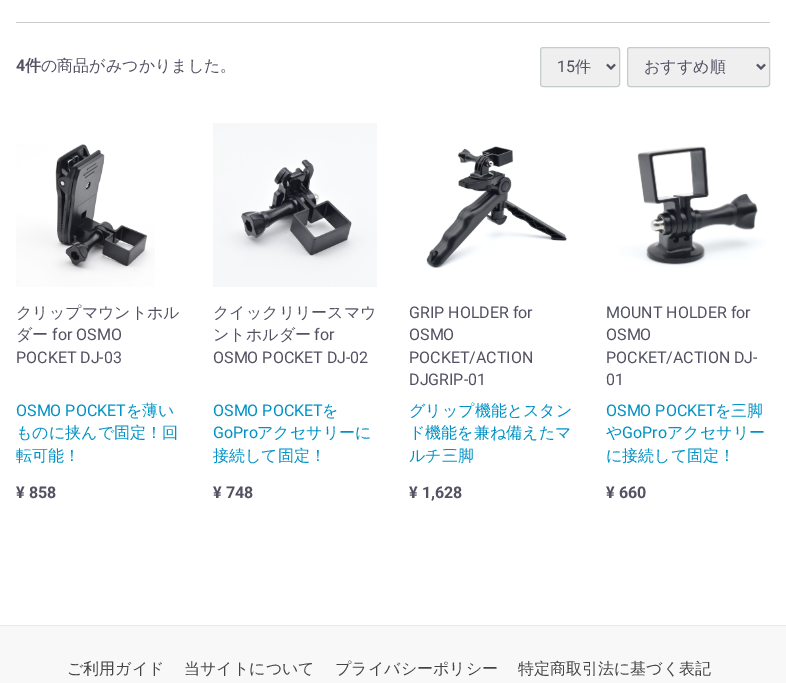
%!PS
<< /PageSize [786 683] >> setpagedevice
/rgb { dup -16 bitshift 255 div exch dup -8 bitshift 255 and 255 div exch 255 and 255 div setrgbcolor } def
/font { [ exch dup neg 0 0 3 -1 roll 0 0 ] selectfont } def
/text { moveto show } def
/roundrect { 5 dict begin { /r /h /w /y /x } { exch def } forall
  x r add y moveto x w add y 2 copy h add r arct x w add y h add x 1 index r arct
  x y h add x y r arct x y 2 copy exch w add exch r arct closepath end } def
/picture { 5 dict begin { /h /w /y /x /name } { exch def } forall
  gsave x y translate w h scale
  w h 8 [w 0 0 h 0 0] name (r) file false 3 colorimage grestore end } def
0 683 translate 1 -1 scale
4 setmiterlimit
/s1 { /Roboto-Bold 16 font 16#525263 rgb } def
/s2 { /WenQuanYiZenHei-Bold 16 font 16#525263 rgb } def
/s3 { /WenQuanYiZenHei-Medium 16 font 16#525263 rgb } def
/s4 { /Roboto-Regular 16 font 16#525263 rgb } def
/s5 { /Roboto-Regular 16 font 16#0092C4 rgb } def
/s6 { /WenQuanYiZenHei-Medium 16 font 16#0092C4 rgb } def
/s7 { /WenQuanYiZenHei-Medium 16 font 16#444444 rgb } def
16#FFFFFF rgb
0 0 786 683 rectfill
16#CCCCCC rgb
16 22 754 1 rectfill
s1
(4) 16 71 text
s2
(件) 25 71 text
s3
(の商品がみつかりました。) 41 71 text
16#EFEFEF rgb
540.5 47.5 79 39 2.5 roundrect gsave fill grestore
16#C4CCCE rgb
stroke
16#525263 rgb
2 setlinewidth
607 64.5 moveto 611 68.5 lineto 615 64.5 lineto stroke
s4
(15) 557 72 text
s3
(件) 575 72 text
16#EFEFEF rgb
627.5 47.5 142 39 2.5 roundrect gsave fill grestore
16#C4CCCE rgb
1 setlinewidth
stroke
16#525263 rgb
2 setlinewidth
757 64.5 moveto 761 68.5 lineto 765 64.5 lineto stroke
(おすすめ順) 644 72 text
(pic1.raw) 16 144 139 143 picture
(クリップマウントホル) 16 318 text
(ダー) 16 340 text
s4
(for OSMO) 52 340 text
(POCKET DJ-03) 16 363 text
s5
(OSMO POCKET) 16 416 text
s6
(を薄い) 126 416 text
(ものに挟んで固定！回) 16 438 text
(転可能！) 16 461 text
s1
(¥ 858) 16 498 text
(pic2.raw) 213 123 164 164 picture
s3
(クイックリリースマウ) 213 318 text
(ントホルダー) 213 340 text
s4
(for) 314 340 text
(OSMO POCKET DJ-02) 213 363 text
s5
(OSMO POCKET) 213 416 text
s6
(を) 322 416 text
s5
(GoPro) 213 438 text
s6
(アクセサリーに) 257 438 text
(接続して固定！) 213 461 text
s1
(¥ 748) 213 498 text
(pic3.raw) 426 146 141 123 picture
s4
(GRIP HOLDER for) 409 318 text
(OSMO) 409 340 text
(POCKET/ACTION) 409 363 text
(DJGRIP-01) 409 385 text
s6
(グリップ機能とスタン) 409 416 text
(ド機能を兼ね備えたマ) 409 438 text
(ルチ三脚) 409 461 text
s1
(¥ 1,628) 409 498 text
(pic4.raw) 619 146 147 122 picture
s4
(MOUNT HOLDER for) 606 318 text
(OSMO) 606 340 text
(POCKET/ACTION DJ-) 606 363 text
(01) 606 385 text
s5
(OSMO POCKET) 606 416 text
s6
(を三脚) 715 416 text
(や) 606 438 text
s5
(GoPro) 622 438 text
s6
(アクセサリー) 667 438 text
(に接続して固定！) 606 461 text
s1
(¥ 660) 606 498 text
16#F8F8F8 rgb
0 626 786 57 rectfill
16#E8E8E8 rgb
0 625 786 1 rectfill
s7
(ご利用ガイド) 67 674 text
(当サイトについて) 184 674 text
(プライバシーポリシー) 335 674 text
(特定商取引法に基づく表記) 518 674 text
showpage
